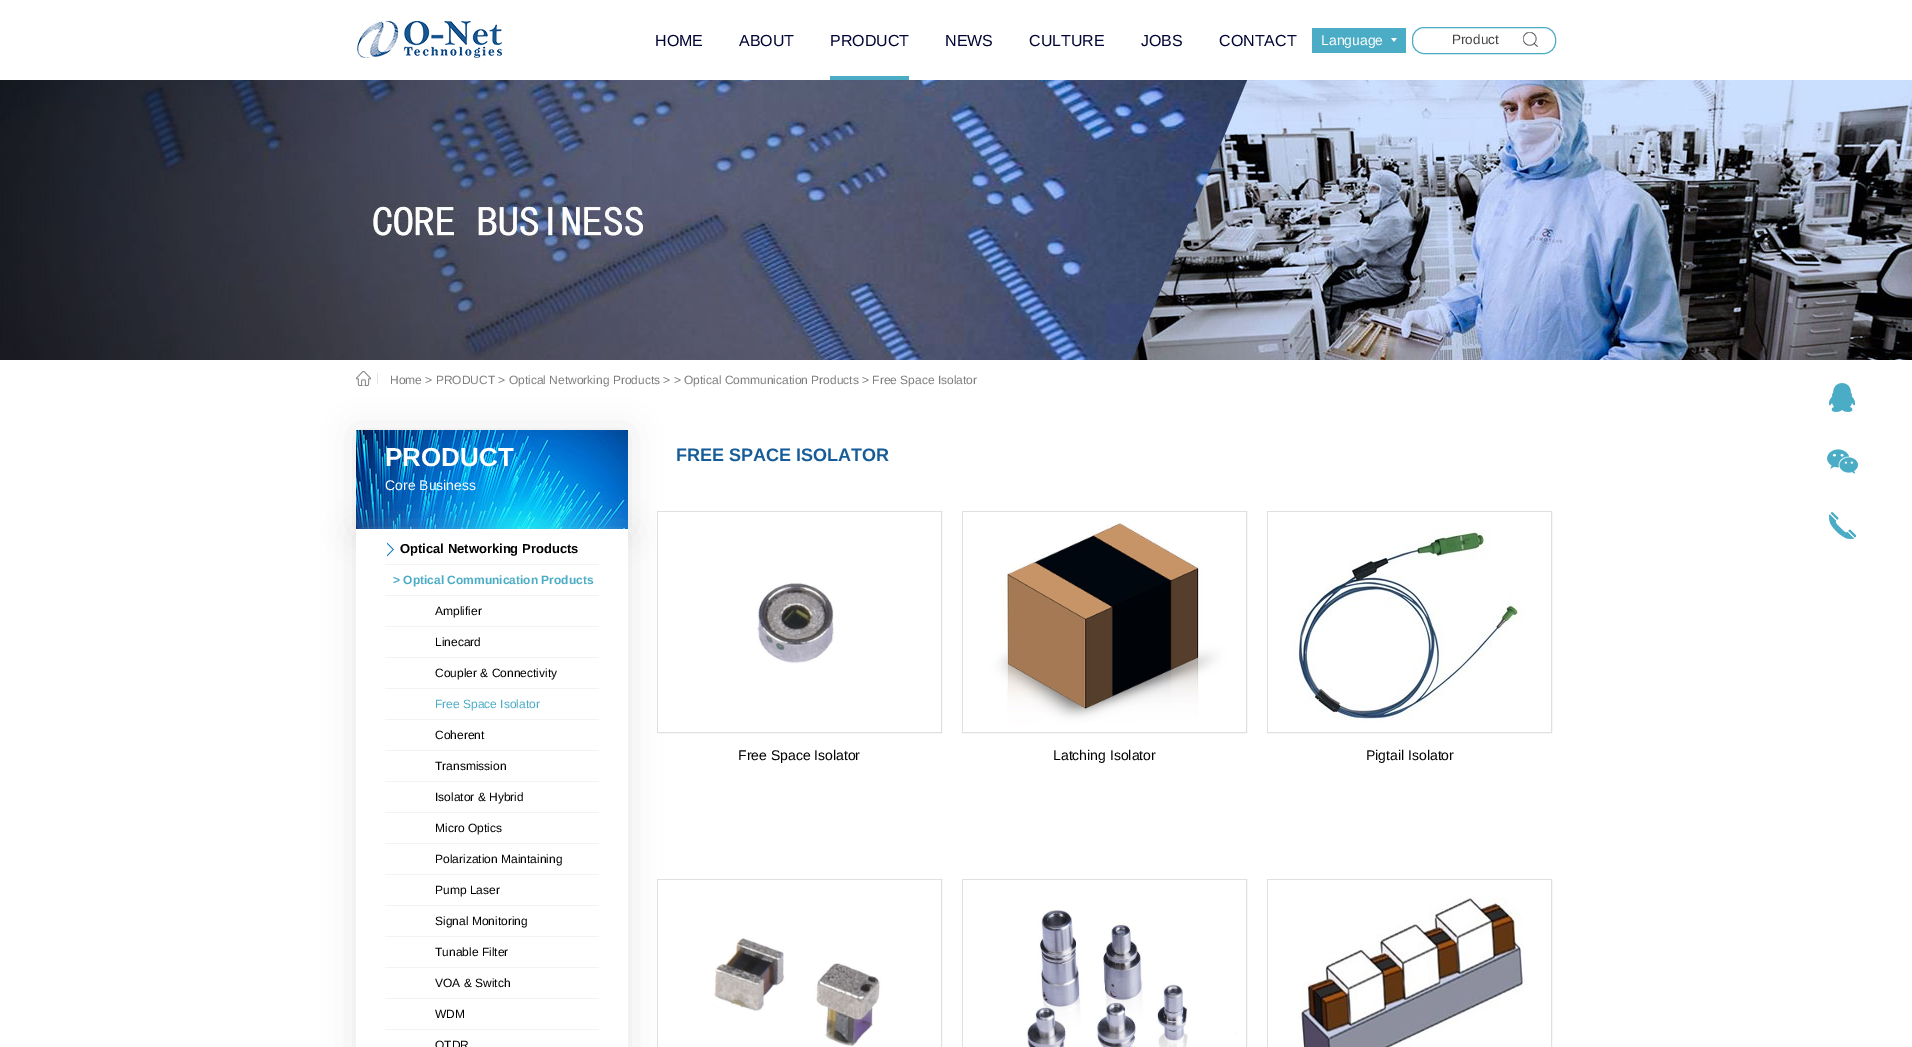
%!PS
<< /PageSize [1912 1047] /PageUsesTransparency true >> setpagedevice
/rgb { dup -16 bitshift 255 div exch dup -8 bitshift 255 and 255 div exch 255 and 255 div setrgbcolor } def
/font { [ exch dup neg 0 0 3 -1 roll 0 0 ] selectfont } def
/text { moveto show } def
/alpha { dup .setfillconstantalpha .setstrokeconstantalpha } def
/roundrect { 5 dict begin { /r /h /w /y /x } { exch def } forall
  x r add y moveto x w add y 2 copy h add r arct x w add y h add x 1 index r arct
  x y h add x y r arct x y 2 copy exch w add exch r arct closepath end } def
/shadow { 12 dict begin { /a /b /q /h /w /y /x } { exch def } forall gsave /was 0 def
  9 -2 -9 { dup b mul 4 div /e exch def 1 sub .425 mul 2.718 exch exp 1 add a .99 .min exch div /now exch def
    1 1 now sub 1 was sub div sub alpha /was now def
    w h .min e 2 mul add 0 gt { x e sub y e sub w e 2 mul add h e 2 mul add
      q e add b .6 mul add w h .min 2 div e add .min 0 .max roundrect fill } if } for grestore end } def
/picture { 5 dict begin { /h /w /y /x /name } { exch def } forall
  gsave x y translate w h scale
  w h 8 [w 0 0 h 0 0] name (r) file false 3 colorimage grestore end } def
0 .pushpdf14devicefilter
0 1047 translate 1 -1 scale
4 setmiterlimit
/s1 { /LiberationSans-Regular 16 font 16#000333 rgb } def
/s2 { /LiberationSans-Regular 14 font 16#FFFFFF rgb } def
/s3 { /LiberationSans-Regular 13.5 font 16#424242 rgb } def
/s4 { /LiberationSans-Regular 12 font 16#7D7D7D rgb } def
/s5 { /LiberationSans-Bold 26 font 16#FFFFFF rgb } def
/s6 { /LiberationSans-Bold 13 font 16#000000 rgb } def
/s7 { /LiberationSans-Bold 12 font 16#4BACC6 rgb } def
/s8 { /LiberationSans-Regular 12 font 16#000000 rgb } def
/s9 { /LiberationSans-Regular 12 font 16#4BACC6 rgb } def
/s10 { /LiberationSans-Bold 18 font 16#165C99 rgb } def
/s11 { /LiberationSans-Regular 14 font 16#000000 rgb } def
16#FFFFFF rgb
0 0 1912 1047 rectfill
s1
(HOME) 655 46 text
(ABOUT) 739 46 text
16#4BACC6 rgb
830 76 79 4 rectfill
s1
(PRODUCT) 830 46 text
(NEWS) 945 46 text
(CULTURE) 1029 46 text
(JOBS) 1141 46 text
(CONTACT) 1219 46 text
(pic1.raw) 357 21 145 37 picture
16#4BACC6 rgb
1312 28 94 25 rectfill
s2
(Language) 1321 45 text
(pic2.raw) 1391 38 6 4 picture
16#4BACC6 rgb
1412.5 27.5 143 26 11.5 roundrect stroke
s3
(Product) 1452 44 text
(pic3.raw) 1523 32 15 15 picture
(pic4.raw) 0 80 1912 280 picture
(pic5.raw) 356 371 22 15 picture
s4
(Home > PRODUCT > Optical Networking Products > > Optical Communication Products > Free Space Isolator) 390 384 text
16#B9B9B9 rgb
356 432 272 99 0 16.5 0.38 shadow
(pic6.raw) 356 430 272 99 picture
s5
(PRODUCT) 385 466 text
16#B9B9B9 rgb
356 531 272 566 0 16.5 0.38 shadow
s2
(Core Business) 385 490 text
356 529 272 518 rectfill
(pic7.raw) 387 542 7 15 picture
16#F3F3F3 rgb
385 564 214 1 rectfill
s6
(Optical Networking Products) 400 553 text
16#F3F3F3 rgb
385 595 214 1 rectfill
s7
(> Optical Communication Products) 393 584 text
16#F3F3F3 rgb
385 626 214 1 rectfill
s8
(Amplifier) 435 615 text
16#F3F3F3 rgb
385 657 214 1 rectfill
s8
(Linecard) 435 646 text
16#F3F3F3 rgb
385 688 214 1 rectfill
s8
(Coupler & Connectivity) 435 677 text
16#F3F3F3 rgb
385 719 214 1 rectfill
s9
(Free Space Isolator) 435 708 text
16#F3F3F3 rgb
385 750 214 1 rectfill
s8
(Coherent) 435 739 text
16#F3F3F3 rgb
385 781 214 1 rectfill
s8
(Transmission) 435 770 text
16#F3F3F3 rgb
385 812 214 1 rectfill
s8
(Isolator & Hybrid) 435 801 text
16#F3F3F3 rgb
385 843 214 1 rectfill
s8
(Micro Optics) 435 832 text
16#F3F3F3 rgb
385 874 214 1 rectfill
s8
(Polarization Maintaining) 435 863 text
16#F3F3F3 rgb
385 905 214 1 rectfill
s8
(Pump Laser) 435 894 text
16#F3F3F3 rgb
385 936 214 1 rectfill
s8
(Signal Monitoring) 435 925 text
16#F3F3F3 rgb
385 967 214 1 rectfill
s8
(Tunable Filter) 435 956 text
16#F3F3F3 rgb
385 998 214 1 rectfill
s8
(VOA & Switch) 435 987 text
16#F3F3F3 rgb
385 1029 214 1 rectfill
s8
(WDM) 435 1018 text
(OTDR) 435 1049 text
s10
(FREE SPACE ISOLATOR) 676 461 text
16#E0E0E0 rgb
657.5 511.5 284 221 rectstroke
(pic8.raw) 658 512 283 220 picture
s11
(Free Space Isolator) 738 760 text
16#E0E0E0 rgb
962.5 511.5 284 221 rectstroke
(pic9.raw) 963 512 283 220 picture
s11
(Latching Isolator) 1053 760 text
16#E0E0E0 rgb
1267.5 511.5 284 221 rectstroke
(pic10.raw) 1268 512 283 220 picture
s11
(Pigtail Isolator) 1366 760 text
16#E0E0E0 rgb
657.5 879.5 284 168 rectstroke
(pic11.raw) 658 880 283 167 picture
962.5 879.5 284 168 rectstroke
(pic12.raw) 963 880 283 167 picture
1267.5 879.5 284 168 rectstroke
(pic13.raw) 1268 880 283 167 picture
(pic14.raw) 1829 383 26 29 picture
(pic15.raw) 1827 449 31 25 picture
(pic16.raw) 1829 512 27 27 picture
.poppdf14devicefilter showpage
